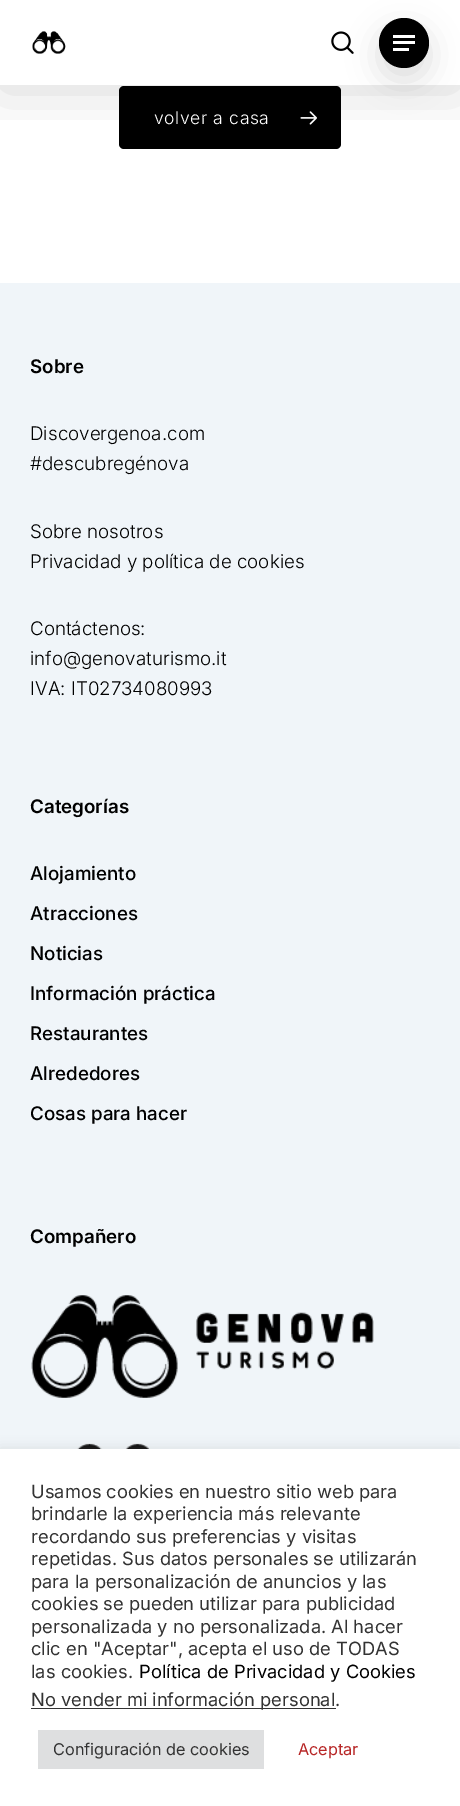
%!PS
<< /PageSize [460 1806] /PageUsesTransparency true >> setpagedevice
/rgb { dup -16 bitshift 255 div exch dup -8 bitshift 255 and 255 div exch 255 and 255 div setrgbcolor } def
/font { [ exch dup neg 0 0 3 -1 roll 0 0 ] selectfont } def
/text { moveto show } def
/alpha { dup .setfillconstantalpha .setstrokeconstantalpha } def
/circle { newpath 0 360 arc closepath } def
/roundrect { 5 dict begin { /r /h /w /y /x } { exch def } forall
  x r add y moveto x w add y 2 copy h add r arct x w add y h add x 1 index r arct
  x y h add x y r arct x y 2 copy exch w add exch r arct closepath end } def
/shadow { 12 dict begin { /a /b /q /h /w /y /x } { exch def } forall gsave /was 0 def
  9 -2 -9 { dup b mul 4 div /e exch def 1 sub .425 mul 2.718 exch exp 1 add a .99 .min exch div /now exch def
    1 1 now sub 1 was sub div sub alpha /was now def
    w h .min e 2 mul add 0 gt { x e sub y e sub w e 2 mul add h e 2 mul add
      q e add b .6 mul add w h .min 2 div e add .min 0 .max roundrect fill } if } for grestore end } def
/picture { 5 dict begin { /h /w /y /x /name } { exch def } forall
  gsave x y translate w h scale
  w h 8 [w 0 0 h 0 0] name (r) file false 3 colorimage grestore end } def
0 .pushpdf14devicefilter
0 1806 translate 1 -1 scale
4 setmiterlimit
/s1 { /Inter-SemiBold 18.75 font 16#000000 rgb } def
/s2 { /Inter-Light 18.75 font 16#000000 rgb } def
/s3 { /Inter-Medium 18.75 font 16#000000 rgb } def
/s4 { /Inter-Regular 18.3 font 16#333333 rgb } def
/s5 { /Inter-Regular 18.3 font 16#000000 rgb } def
/s6 { /Inter-Regular 16.25 font 16#333333 rgb } def
/s7 { /Inter-Regular 16.25 font 16#B72626 rgb } def
16#FFFFFF rgb
0 0 460 1806 rectfill
16#000000 rgb
119 86 222 63 5 roundrect fill
(pic3.raw) 300 111 17 14 picture
gsave
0 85 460 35 rectclip
0 4 460 85 0 28 0.15 shadow
grestore
(pic1.raw) 32 31 34 23 picture
(pic2.raw) 331 31 23 23 picture
379 30 50 50 25 15.5 0.13 shadow
404 43 25 circle fill
16#FFFFFF rgb
393 35 22 3 rectfill
393 48 16 3 rectfill
393 41 22 3 rectfill
/Inter-Light 17.5 font
154 124 moveto 0.6 0 (volver a casa) ashow
16#F0F5F9 rgb
0 283 460 1166 rectfill
s1
(Sobre) 30 373 text
s2
(Discovergenoa.com) 30 440 text
(#descubregénova) 30 470 text
(Sobre nosotros) 30 538 text
(Privacidad y política de cookies) 30 568 text
(Contáctenos:) 30 635 text
(info@genovaturismo.it) 30 665 text
(IVA: IT02734080993) 30 695 text
s1
(Categorías) 30 813 text
s3
(Alojamiento) 30 880 text
(Atracciones) 30 920 text
(Noticias) 30 960 text
(Información práctica) 30 1000 text
(Restaurantes) 30 1040 text
(Alrededores) 30 1080 text
(Cosas para hacer) 30 1120 text
s1
(Compañero) 30 1243 text
(pic4.raw) 31 1295 343 103 picture
(pic5.raw) 77 1443 73 6 picture
16#ACABAB rgb
0 1448 460 357 0 6 0.3 shadow
16#FFFFFF rgb
0 1449 460 357 rectfill
s4
(Usamos cookies en nuestro sitio web para) 31 1498 text
(brindarle la experiencia más relevante) 31 1520 text
(recordando sus preferencias y visitas) 31 1543 text
(repetidas. Sus datos personales se utilizarán) 31 1565 text
(para la personalización de anuncios y las) 31 1588 text
(cookies se pueden utilizar para publicidad) 31 1610 text
(personalizada y no personalizada. Al hacer) 31 1633 text
(clic en "Aceptar", acepta el uso de TODAS) 31 1655 text
(las cookies.) 31 1678 text
s5
(Política de Privacidad y Cookies) 139 1678 text
16#333333 rgb
31 1708 305 1 rectfill
(No vender mi información personal.) 31 1706 text
16#DEDFE0 rgb
38 1730 226 39 rectfill
s6
(Configuración de cookies) 53 1755 text
s7
(Aceptar) 298 1755 text
.poppdf14devicefilter showpage
